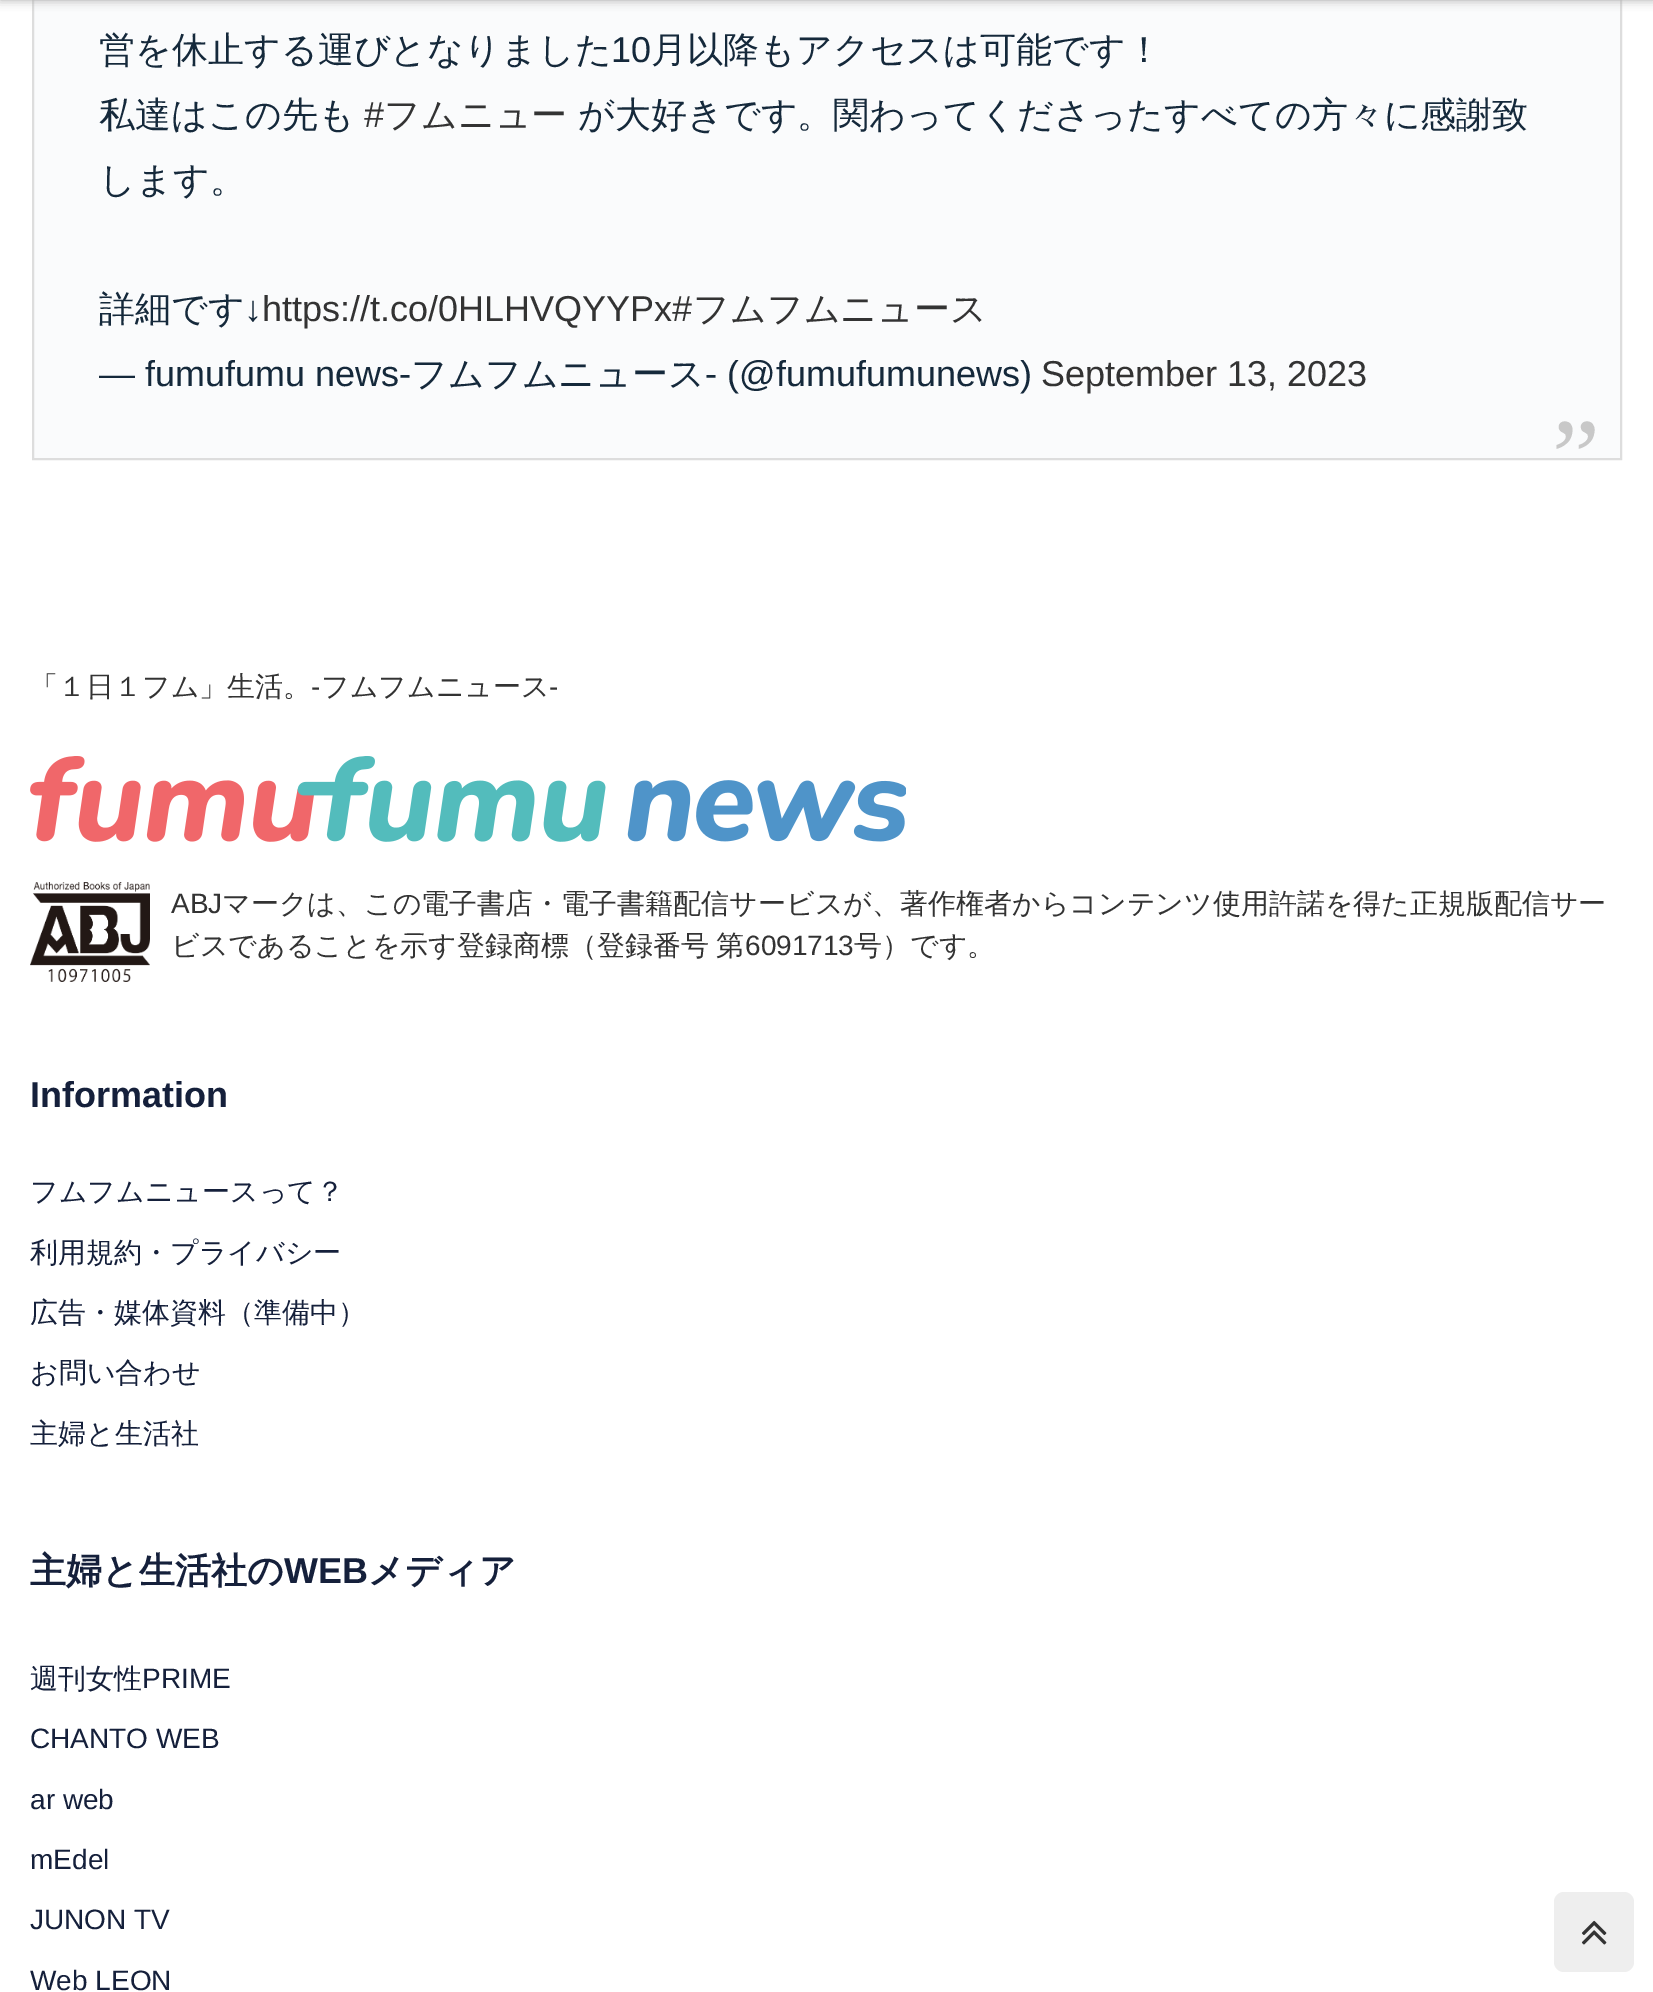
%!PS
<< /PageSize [1653 1992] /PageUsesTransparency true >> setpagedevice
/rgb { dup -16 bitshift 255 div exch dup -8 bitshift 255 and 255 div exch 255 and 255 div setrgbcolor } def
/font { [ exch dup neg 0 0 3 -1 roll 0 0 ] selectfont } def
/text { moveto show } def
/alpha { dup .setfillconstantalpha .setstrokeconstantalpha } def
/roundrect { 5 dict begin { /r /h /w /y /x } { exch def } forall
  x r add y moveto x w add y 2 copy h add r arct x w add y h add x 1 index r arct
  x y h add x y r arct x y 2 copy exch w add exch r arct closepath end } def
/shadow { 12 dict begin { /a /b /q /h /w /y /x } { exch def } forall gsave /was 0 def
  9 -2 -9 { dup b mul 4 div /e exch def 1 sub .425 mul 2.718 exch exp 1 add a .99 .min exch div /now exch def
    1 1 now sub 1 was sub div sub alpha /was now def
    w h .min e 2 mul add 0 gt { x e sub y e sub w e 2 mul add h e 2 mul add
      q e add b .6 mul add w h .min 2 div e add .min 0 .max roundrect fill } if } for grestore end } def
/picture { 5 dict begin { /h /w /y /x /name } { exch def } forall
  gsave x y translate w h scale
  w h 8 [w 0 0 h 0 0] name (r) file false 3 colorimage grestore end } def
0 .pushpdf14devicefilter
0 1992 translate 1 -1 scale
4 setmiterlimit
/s1 { /WenQuanYiZenHei-Medium 36 font 16#15293B rgb } def
/s2 { /LiberationSans-Regular 36 font 16#15293B rgb } def
/s3 { /LiberationSans-Regular 36 font 16#333333 rgb } def
/s4 { /WenQuanYiZenHei-Medium 36 font 16#333333 rgb } def
/s5 { /LiberationSerif-Regular 108 font 16#C8C8C8 rgb } def
/s6 { /WenQuanYiZenHei-Medium 28 font 16#333333 rgb } def
/s7 { /LiberationSans-Regular 28 font 16#333333 rgb } def
/s8 { /LiberationSans-Bold 36 font 16#15203B rgb } def
/s9 { /WenQuanYiZenHei-Medium 28 font 16#15203B rgb } def
/s10 { /WenQuanYiZenHei-Bold 36 font 16#15203B rgb } def
/s11 { /LiberationSans-Regular 28 font 16#15203B rgb } def
16#FFFFFF rgb
0 0 1653 1992 rectfill
16#FAFBFC rgb
33 -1 moveto 1621 -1 lineto 1621 459 lineto 33 459 lineto closepath gsave fill grestore
16#DDDDDD rgb
2 setlinewidth
stroke
16#A9A9A9 rgb
0 -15 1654 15 0 5 1 shadow
s1
(営を休止する運びとなりました) 99 62 text
s2
(10) 611 62 text
s1
(月以降もアクセスは可能です！) 651 62 text
(私達はこの先も) 99 127 text
s3
(#) 364 127 text
s4
(フムニュー) 384 127 text
s1
(が大好きです。関わってくださったすべての方々に感謝致) 578 127 text
(します。) 99 192 text
(詳細です) 99 321 text
s2
(↓) 244 321 text
s3
(https://t.co/0HLHVQYYPx#) 262 321 text
s4
(フムフムニュース) 693 321 text
s2
(— fumufumu news-) 99 386 text
s1
(フムフムニュース) 411 386 text
s2
(- \(@fumufumunews\)) 705 386 text
s3
(September 13, 2023) 1041 386 text
s5
(”) 1552 493 text
s6
(「１日１フム」生活。) 30 696 text
s7
(-) 311 696 text
s6
(フムフムニュース) 321 696 text
s7
(-) 549 696 text
(pic1.raw) 30 756 876 86 picture
(pic2.raw) 30 882 120 100 picture
(ABJ) 171 913 text
s6
(マークは、この電子書店・電子書籍配信サービスが、著作権者からコンテンツ使用許諾を得た正規版配信サー) 222 913 text
171 955 moveto -1 0 32 (ビスであることを示す登録商標（登録番号 第) widthshow
s7
(6091713) 745 955 text
s6
(号）です。) 854 955 text
s8
(Information) 30 1107 text
s9
(フムフムニュースって？) 30 1201 text
(利用規約・プライバシー) 30 1262 text
(広告・媒体資料（準備中）) 30 1322 text
(お問い合わせ) 30 1382 text
(主婦と生活社) 30 1443 text
s10
(主婦と生活社の) 30 1583 text
s8
(WEB) 284 1583 text
s10
(メディア) 368 1583 text
s9
(週刊女性) 30 1688 text
s11
(PRIME) 142 1688 text
(CHANTO WEB) 30 1748 text
(ar web) 30 1809 text
(mEdel) 30 1869 text
(JUNON TV) 30 1929 text
(Web LEON) 30 1990 text
16#EEEEEE rgb
1554 1892 80 80 10 roundrect fill
(pic3.raw) 1581 1920 26 25 picture
.poppdf14devicefilter showpage
